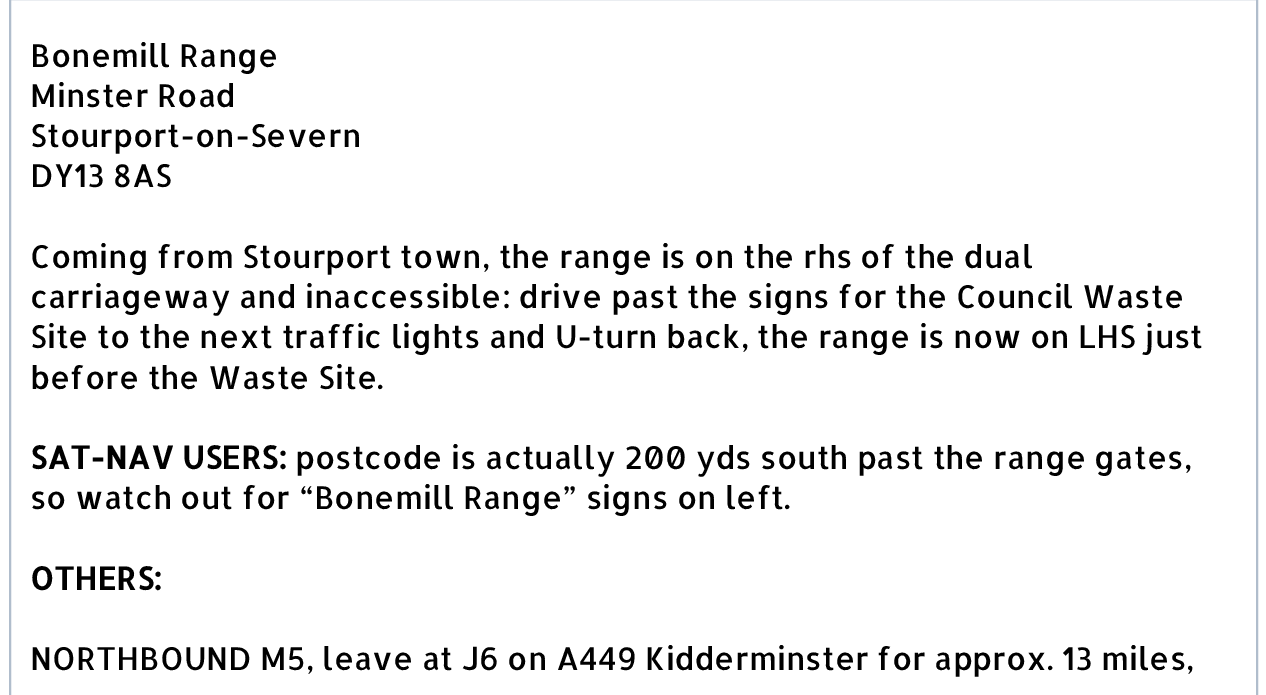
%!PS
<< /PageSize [1266 695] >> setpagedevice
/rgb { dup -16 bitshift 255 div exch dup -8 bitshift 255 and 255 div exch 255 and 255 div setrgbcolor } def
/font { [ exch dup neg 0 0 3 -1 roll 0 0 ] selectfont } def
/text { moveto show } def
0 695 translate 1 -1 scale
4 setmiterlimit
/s1 { /Allerta-Regular 31.5 font 16#000000 rgb } def
/s2 { /Allerta-Bold 31.5 font 16#000000 rgb } def
16#FFFFFF rgb
0 0 1266 695 rectfill
16#B0BDCC rgb
2 setlinewidth
10 -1 1247 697 rectstroke
s1
(Bonemill Range) 30 67 text
(Minster Road) 30 107 text
(Stourport-on-Severn) 30 147 text
(DY13 8AS) 30 187 text
(Coming from Stourport town, the range is on the rhs of the dual) 30 268 text
(carriageway and inaccessible: drive past the signs for the Council Waste) 30 308 text
(Site to the next traffic lights and U-turn back, the range is now on LHS just) 30 348 text
(before the Waste Site.) 30 389 text
s2
(SAT-NAV USERS:) 30 469 text
s1
(postcode is actually 200 yds south past the range gates,) 295 469 text
(so watch out for “Bonemill Range” signs on left.) 30 509 text
s2
(OTHERS:) 30 590 text
s1
(NORTHBOUND M5, leave at J6 on A449 Kidderminster for approx. 13 miles,) 30 670 text
showpage
